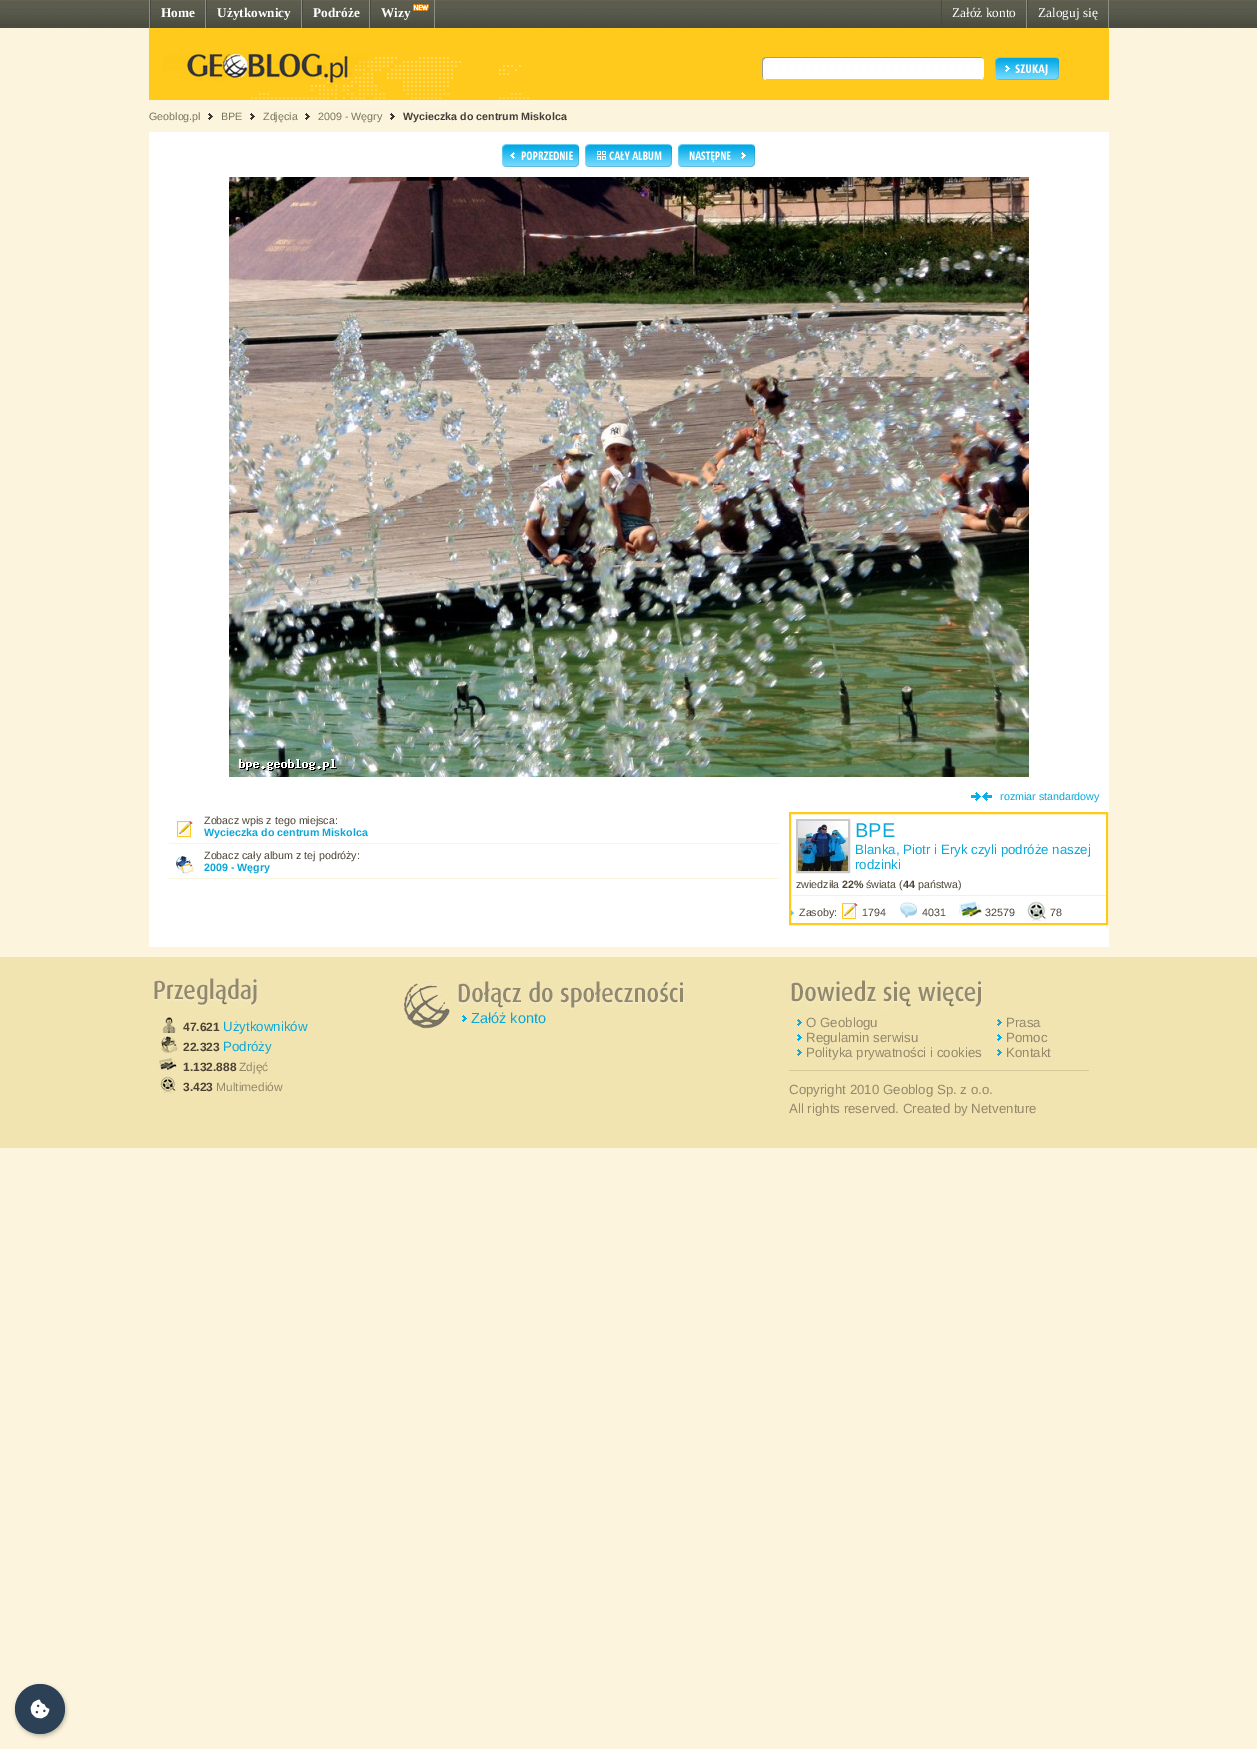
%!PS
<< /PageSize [1257 1749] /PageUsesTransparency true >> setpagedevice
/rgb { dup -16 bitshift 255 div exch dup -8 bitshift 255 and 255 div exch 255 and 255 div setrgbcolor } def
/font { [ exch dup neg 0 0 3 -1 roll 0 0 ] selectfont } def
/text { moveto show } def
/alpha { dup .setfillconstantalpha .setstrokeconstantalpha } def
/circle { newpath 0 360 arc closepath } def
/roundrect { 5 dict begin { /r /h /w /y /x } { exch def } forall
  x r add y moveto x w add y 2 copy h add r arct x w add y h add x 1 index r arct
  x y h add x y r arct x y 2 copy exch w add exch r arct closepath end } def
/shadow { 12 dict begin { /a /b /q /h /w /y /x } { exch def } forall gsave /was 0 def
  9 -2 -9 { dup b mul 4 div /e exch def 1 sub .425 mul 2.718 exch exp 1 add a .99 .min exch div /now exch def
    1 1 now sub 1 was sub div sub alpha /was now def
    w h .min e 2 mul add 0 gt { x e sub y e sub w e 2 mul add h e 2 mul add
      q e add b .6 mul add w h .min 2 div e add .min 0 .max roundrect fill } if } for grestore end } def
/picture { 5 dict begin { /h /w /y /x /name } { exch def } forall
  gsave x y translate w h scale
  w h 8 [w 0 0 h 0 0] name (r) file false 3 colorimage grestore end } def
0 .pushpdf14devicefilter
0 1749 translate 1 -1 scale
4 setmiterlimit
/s1 { /LiberationSerif-Bold 13.3 font 16#FFFFFF rgb } def
/s2 { /LiberationSerif-Regular 13.3 font 16#FFFFFF rgb } def
/s3 { /LiberationSans-Regular 10.7 font 16#76765C rgb } def
/s4 { /LiberationSans-Bold 10.7 font 16#443F39 rgb } def
/s5 { /LiberationSans-Regular 10.7 font 16#0BA7D8 rgb } def
/s6 { /LiberationSans-Regular 10.7 font 16#4B4233 rgb } def
/s7 { /LiberationSans-Bold 10.7 font 16#0BA7D8 rgb } def
/s8 { /LiberationSans-Regular 20 font 16#0BA7D8 rgb } def
/s9 { /LiberationSans-Regular 13.3 font 16#0BA7D8 rgb } def
/s10 { /LiberationSans-Bold 10.7 font 16#4B4233 rgb } def
/s11 { /LiberationSans-Regular 14.5 font 16#0BA7D8 rgb } def
/s12 { /LiberationSans-Bold 12 font 16#4B4233 rgb } def
/s13 { /LiberationSans-Regular 12 font 16#92886A rgb } def
/s14 { /LiberationSans-Regular 13.3 font 16#92886A rgb } def
16#FCF4DD rgb
0 0 1257 1749 rectfill
(pic1.raw) 0 0 1257 28 picture
16#8C8D83 rgb
149 0 1 28 rectfill
205 0 1 28 rectfill
16#494A41 rgb
150 0 1 28 rectfill
s1
(Home) 161 17 text
16#8C8D83 rgb
301 0 1 28 rectfill
16#494A41 rgb
206 0 1 28 rectfill
s1
(Użytkownicy) 217 17 text
16#8C8D83 rgb
369 0 1 28 rectfill
16#494A41 rgb
302 0 1 28 rectfill
s1
(Podróże) 313 17 text
16#8C8D83 rgb
434 0 1 28 rectfill
16#494A41 rgb
370 0 1 28 rectfill
s1
(Wizy) 381 17 text
(pic2.raw) 413 4 16 7 picture
16#8C8D83 rgb
1026 0 1 28 rectfill
16#494A41 rgb
941 0 1 28 rectfill
s2
(Załóż konto) 952 17 text
16#8C8D83 rgb
1108 0 1 28 rectfill
16#494A41 rgb
1027 0 1 28 rectfill
s2
(Zaloguj się) 1038 17 text
16#FFCA1C rgb
149 28 960 72 rectfill
(pic3.raw) 149 52 380 48 picture
(pic4.raw) 762 56 4 25 picture
16#FFFFFF rgb
766 78 215 1 rectfill
(pic5.raw) 766 56 215 22 picture
(pic6.raw) 981 56 4 25 picture
(pic7.raw) 995 57 64 23 picture
s3
(Geoblog.pl) 149 120 text
(pic8.raw) 208 113 5 7 picture
(BPE) 221 120 text
(pic8.raw) 250 113 5 7 picture
(Zdjęcia) 263 120 text
(pic8.raw) 305 113 5 7 picture
(2009 - Węgry) 318 120 text
(pic8.raw) 390 113 5 7 picture
s4
(Wycieczka do centrum Miskolca) 403 120 text
16#FFFFFF rgb
149 132 960 815 rectfill
(pic9.raw) 502 144 77 23 picture
(pic10.raw) 585 144 87 23 picture
(pic11.raw) 678 144 77 23 picture
(pic12.raw) 229 177 800 600 picture
(pic13.raw) 971 792 21 9 picture
s5
(rozmiar standardowy) 1000 800 text
16#FAF5DF rgb
169 843 610 1 rectfill
(pic14.raw) 177 821 16 16 picture
s6
(Zobacz wpis z tego miejsca:) 204 824 text
s7
(Wycieczka do centrum Miskolca) 204 836 text
16#FAF5DF rgb
169 878 610 1 rectfill
(pic15.raw) 176 856 18 18 picture
s6
(Zobacz cały album z tej podróży:) 204 859 text
s7
(2009 - Węgry) 204 871 text
16#FFCA1C rgb
2 setlinewidth
790 813 317 111 rectstroke
16#F0F0F0 rgb
791 895 315 1 rectfill
16#CACACA rgb
797 820 52 52 rectstroke
(pic16.raw) 798 821 50 50 picture
s8
(BPE) 855 837 text
s9
(Blanka, Piotr i Eryk czyli podróże naszej) 855 854 text
(rodzinki) 855 869 text
s6
(zwiedziła) 796 888 text
s10
(22%) 842 888 text
s6
(świata \() 866 888 text
s10
(44) 903 888 text
s6
(państwa\)) 918 888 text
(pic17.raw) 791 910 3 6 picture
(Zasoby:) 799 916 text
(pic14.raw) 842 903 16 16 picture
(1794) 862 916 text
(pic18.raw) 900 902 17 16 picture
(4031) 922 916 text
(pic19.raw) 959 901 23 17 picture
(32579) 985 916 text
(pic20.raw) 1027 901 19 20 picture
(78) 1050 916 text
16#F2E4B1 rgb
0 957 1257 191 rectfill
(pic21.raw) 401 979 52 52 picture
(pic22.raw) 454 979 234 31 picture
(pic23.raw) 459 1013 9 12 picture
s11
(Załóż konto) 471 1023 text
(pic24.raw) 153 977 104 32 picture
(pic25.raw) 160 1017 16 16 picture
s12
(47.621) 183 1031 text
s9
(Użytkowników) 223 1031 text
(pic26.raw) 160 1036 18 17 picture
s12
(22.323) 183 1051 text
s9
(Podróży) 223 1051 text
(pic27.raw) 159 1057 19 16 picture
s12
(1.132.888) 183 1071 text
s13
(Zdjęć) 239 1071 text
(pic28.raw) 160 1076 16 17 picture
s12
(3.423) 183 1091 text
s13
(Multimediów) 216 1091 text
(pic29.raw) 791 979 192 31 picture
16#D7C99A rgb
789 1070 300 1 rectfill
(pic23.raw) 794 1017 9 12 picture
s14
(O Geoblogu) 806 1027 text
(pic23.raw) 794 1032 9 12 picture
(Regulamin serwisu) 806 1042 text
(pic23.raw) 794 1047 9 12 picture
(Polityka prywatności i cookies) 806 1057 text
(pic23.raw) 994 1017 9 12 picture
(Prasa) 1006 1027 text
(pic23.raw) 994 1032 9 12 picture
(Pomoc) 1006 1042 text
(pic23.raw) 994 1047 9 12 picture
(Kontakt) 1006 1057 text
(Copyright 2010 Geoblog Sp. z o.o.) 789 1094 text
(All rights reserved. Created by Netventure) 789 1113 text
16#000000 rgb
16 1686 50 50 25 2 0.25 shadow
16#2D4156 rgb
40 1709 25 circle fill
(pic30.raw) 30 1699 20 20 picture
.poppdf14devicefilter showpage
